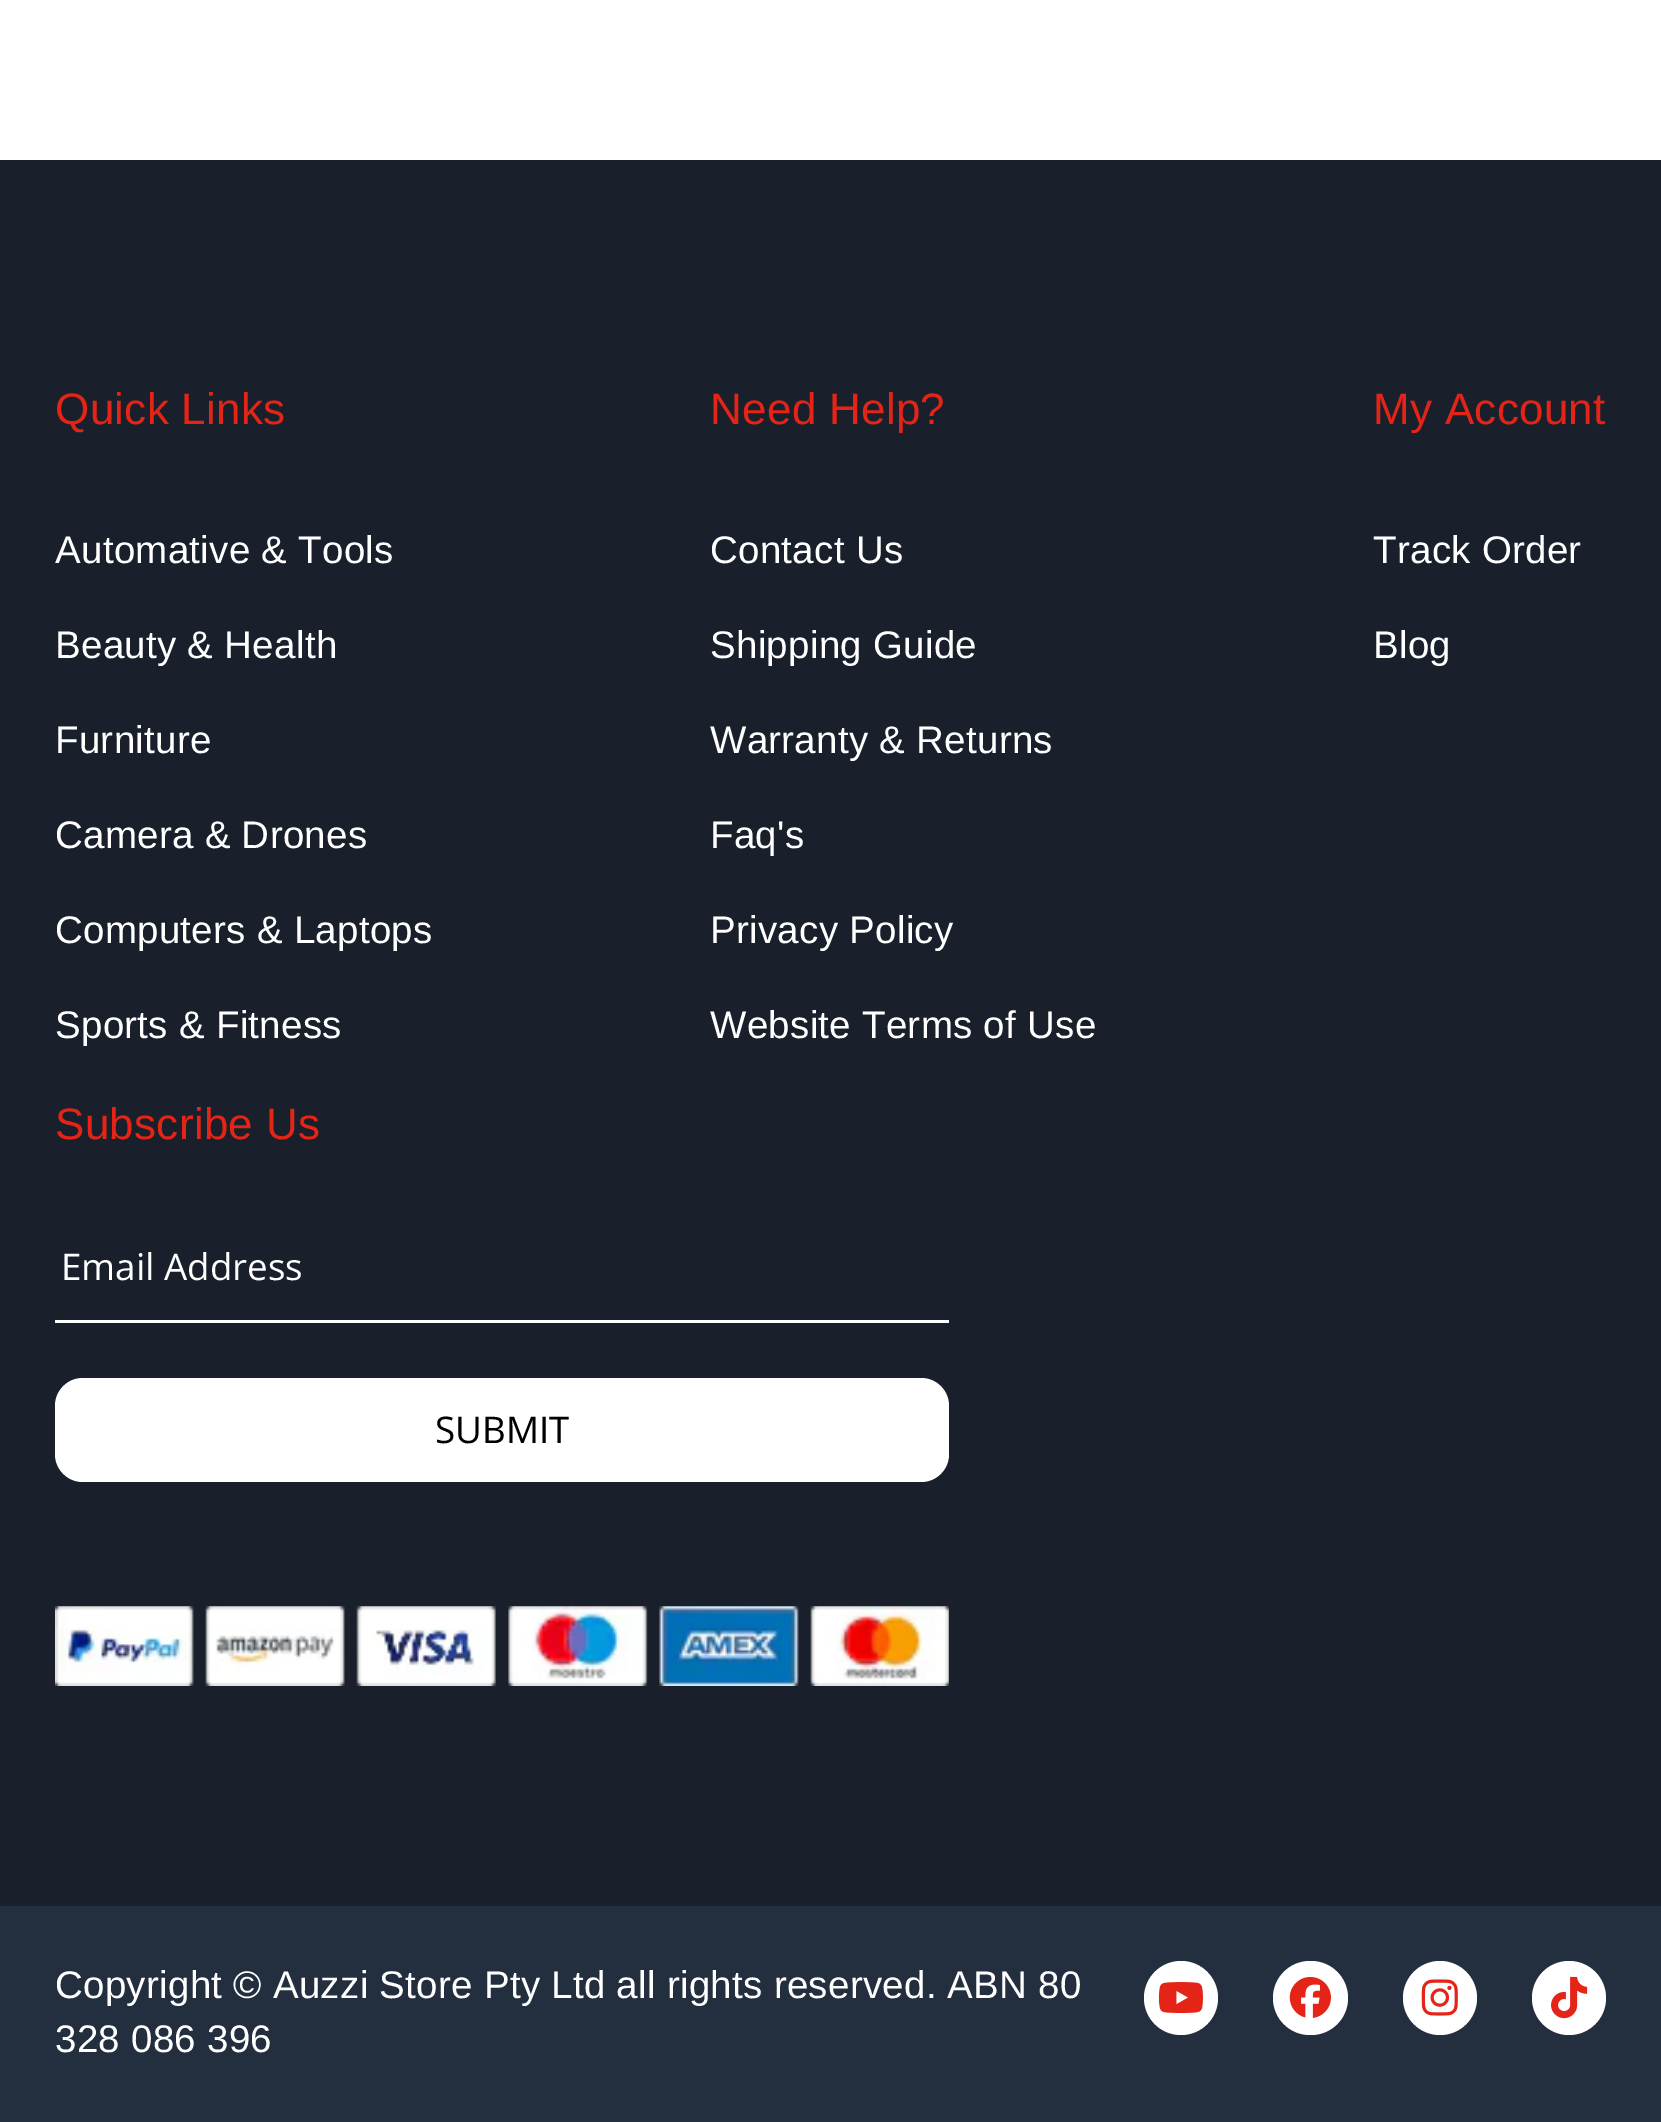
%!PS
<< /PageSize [1661 2122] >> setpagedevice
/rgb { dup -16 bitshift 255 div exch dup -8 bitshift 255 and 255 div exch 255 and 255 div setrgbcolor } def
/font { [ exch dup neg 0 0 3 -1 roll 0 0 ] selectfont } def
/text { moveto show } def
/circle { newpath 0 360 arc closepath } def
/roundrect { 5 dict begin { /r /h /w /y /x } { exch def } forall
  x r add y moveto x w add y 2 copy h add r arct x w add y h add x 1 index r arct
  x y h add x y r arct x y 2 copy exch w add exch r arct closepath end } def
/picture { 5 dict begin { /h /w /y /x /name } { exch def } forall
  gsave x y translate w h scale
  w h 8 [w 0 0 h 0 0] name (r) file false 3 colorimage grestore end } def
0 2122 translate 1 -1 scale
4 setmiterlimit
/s1 { /OpenSans-Regular 36.75 font 16#FFFFFF rgb } def
/s2 { /OpenSans-Regular 36.75 font 16#000000 rgb } def
16#FFFFFF rgb
0 0 1661 2122 rectfill
16#19202B rgb
0 160 1661 1746 rectfill
/LiberationSans-Regular 44 font
16#E42417 rgb
55 424 moveto 0.28 0 (Quick Links) ashow
/LiberationSans-Regular 38.5 font
16#FFFFFF rgb
55 563 moveto 0.28 0 (Automative & Tools) ashow
55 658 moveto 0.28 0 (Beauty & Health) ashow
55 753 moveto 0.28 0 (Furniture) ashow
55 848 moveto 0.28 0 (Camera & Drones) ashow
55 943 moveto 0.28 0 (Computers & Laptops) ashow
55 1038 moveto 0.28 0 (Sports & Fitness) ashow
/LiberationSans-Regular 44 font
16#E42417 rgb
710 424 moveto 0.28 0 (Need Help?) ashow
/LiberationSans-Regular 38.5 font
16#FFFFFF rgb
710 563 moveto 0.28 0 (Contact Us) ashow
710 658 moveto 0.28 0 (Shipping Guide) ashow
710 753 moveto 0.28 0 (Warranty & Returns) ashow
710 848 moveto 0.28 0 (Faq's) ashow
710 943 moveto 0.28 0 (Privacy Policy) ashow
710 1038 moveto 0.28 0 (Website Terms of Use) ashow
/LiberationSans-Regular 44 font
16#E42417 rgb
1373 424 moveto 0.28 0 (My Account) ashow
/LiberationSans-Regular 38.5 font
16#FFFFFF rgb
1373 563 moveto 0.28 0 (Track Order) ashow
1373 658 moveto 0.28 0 (Blog) ashow
/LiberationSans-Regular 44 font
16#E42417 rgb
55 1139 moveto 0.28 0 (Subscribe Us) ashow
16#FFFFFF rgb
55 1320 894 3 rectfill
s1
(Email Address) 61 1280 text
55 1378 894 104 28 roundrect fill
s2
(SUBMIT) 435 1443 text
(pic1.raw) 55 1606 894 80 picture
16#232F3E rgb
0 1906 1661 216 rectfill
/LiberationSans-Regular 38.5 font
16#FFFFFF rgb
55 1998 moveto 0.28 0 (Copyright © Auzzi Store Pty Ltd all rights reserved. ABN 80) ashow
55 2052 moveto 0.28 0 (328 086 396) ashow
1181 1998 37 circle fill
(pic2.raw) 1158 1982 45 31 picture
1273 1961 75 74 37 roundrect fill
(pic3.raw) 1289 1976 42 42 picture
1440 1998 37 circle fill
(pic4.raw) 1421 1979 37 37 picture
1569 1998 37 circle fill
(pic5.raw) 1551 1976 37 43 picture
showpage
